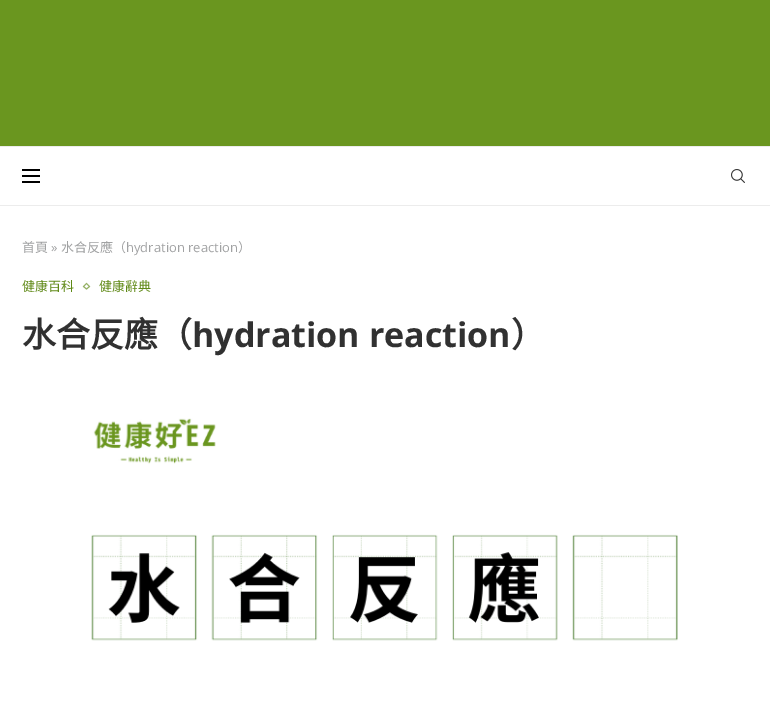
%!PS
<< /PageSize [770 711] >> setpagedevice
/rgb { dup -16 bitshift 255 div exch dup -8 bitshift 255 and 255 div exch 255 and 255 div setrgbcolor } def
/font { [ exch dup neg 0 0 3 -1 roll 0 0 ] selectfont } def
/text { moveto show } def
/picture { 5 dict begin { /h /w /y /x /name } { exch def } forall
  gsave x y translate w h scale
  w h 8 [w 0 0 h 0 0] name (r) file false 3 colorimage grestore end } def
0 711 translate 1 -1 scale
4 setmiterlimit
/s1 { /NotoSansCJKTC-Regular 13 font 16#A1A2A3 rgb } def
/s2 { /OpenSans-Regular 13 font 16#A1A2A3 rgb } def
/s3 { /NotoSansCJKTC-Regular 13 font 16#5F8916 rgb } def
/s4 { /NotoSansCJKTC-Bold 34 font 16#313131 rgb } def
/s5 { /OpenSans-Bold 34 font 16#313131 rgb } def
16#FFFFFF rgb
0 0 770 711 rectfill
16#6A961F rgb
0 0 770 146 rectfill
16#ECECEC rgb
0 146 770 1 rectfill
0 205 770 1 rectfill
16#000000 rgb
22 169 18 2 rectfill
22 175 18 2 rectfill
22 181 18 2 rectfill
(pic1.raw) 731 169 14 14 picture
s1
(首頁) 22 252 text
s2
(») 51 252 text
s1
(水合反應（) 61 252 text
s2
(hydration reaction) 126 252 text
s1
(）) 238 252 text
s3
(健康百科) 22 291 text
16#97B268 rgb
86.5 283.5 moveto 89.5 286.5 lineto 86.5 289 lineto 83.5 286.5 lineto closepath stroke
s3
(健康辭典) 99 291 text
s4
(水合反應（) 22 347 text
s5
(hydration reaction) 192 347 text
s4
(）) 511 347 text
(pic2.raw) 91 418 587 223 picture
showpage
